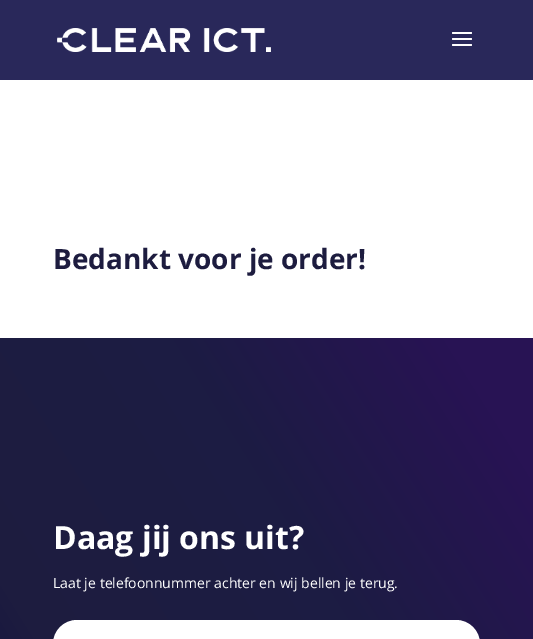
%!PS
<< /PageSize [533 639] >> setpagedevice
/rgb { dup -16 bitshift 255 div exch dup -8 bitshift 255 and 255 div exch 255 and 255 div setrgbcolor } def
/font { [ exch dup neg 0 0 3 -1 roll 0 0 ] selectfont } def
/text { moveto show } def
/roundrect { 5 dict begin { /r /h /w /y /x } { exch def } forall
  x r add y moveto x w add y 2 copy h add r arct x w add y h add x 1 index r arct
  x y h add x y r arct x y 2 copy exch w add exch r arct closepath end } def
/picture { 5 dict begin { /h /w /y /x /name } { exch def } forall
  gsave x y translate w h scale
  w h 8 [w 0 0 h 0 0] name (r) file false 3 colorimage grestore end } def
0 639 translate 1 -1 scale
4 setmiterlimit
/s1 { /OpenSans-Bold 28 font 16#1D1C3F rgb } def
/s2 { /OpenSans-Bold 32 font 16#FFFFFF rgb } def
/s3 { /OpenSans-Regular 14 font 16#FFFFFF rgb } def
16#FFFFFF rgb
0 0 533 639 rectfill
16#29285A rgb
0 0 533 80 rectfill
(pic1.raw) 57 28 214 24 picture
16#FFFFFF rgb
452 38 20 2 1 roundrect fill
452 32 20 2 1 roundrect fill
452 44 20 2 1 roundrect fill
s1
(Bedankt voor je order!) 53 269 text
gsave 0 338 moveto 533 338 lineto 533 639 lineto 0 639 lineto closepath clip newpath
<< /ShadingType 2 /ColorSpace /DeviceRGB /Coords [-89 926 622 481] /Extend [true true] /Function << /FunctionType 3 /Domain [0 1] /Functions [<< /FunctionType 2 /Domain [0 1] /C0 [0.047 0.047 0.267] /C1 [0.047 0.047 0.267] /N 1 >> << /FunctionType 2 /Domain [0 1] /C0 [0.047 0.047 0.267] /C1 [0.114 0.11 0.247] /N 1 >> << /FunctionType 2 /Domain [0 1] /C0 [0.114 0.11 0.247] /C1 [0.11 0.11 0.263] /N 1 >> << /FunctionType 2 /Domain [0 1] /C0 [0.11 0.11 0.263] /C1 [0.157 0.075 0.329] /N 1 >> << /FunctionType 2 /Domain [0 1] /C0 [0.157 0.075 0.329] /C1 [0.157 0.075 0.329] /N 1 >>] /Bounds [0.07 0.31 0.63 0.91] /Encode [0 1 0 1 0 1 0 1 0 1] >> >> shfill grestore
s2
(Daag jij ons uit?) 53 549 text
s3
(Laat je telefoonnummer achter en wij bellen je terug.) 53 588 text
54 621 425 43 23 roundrect gsave fill grestore
2 setlinewidth
stroke
showpage
